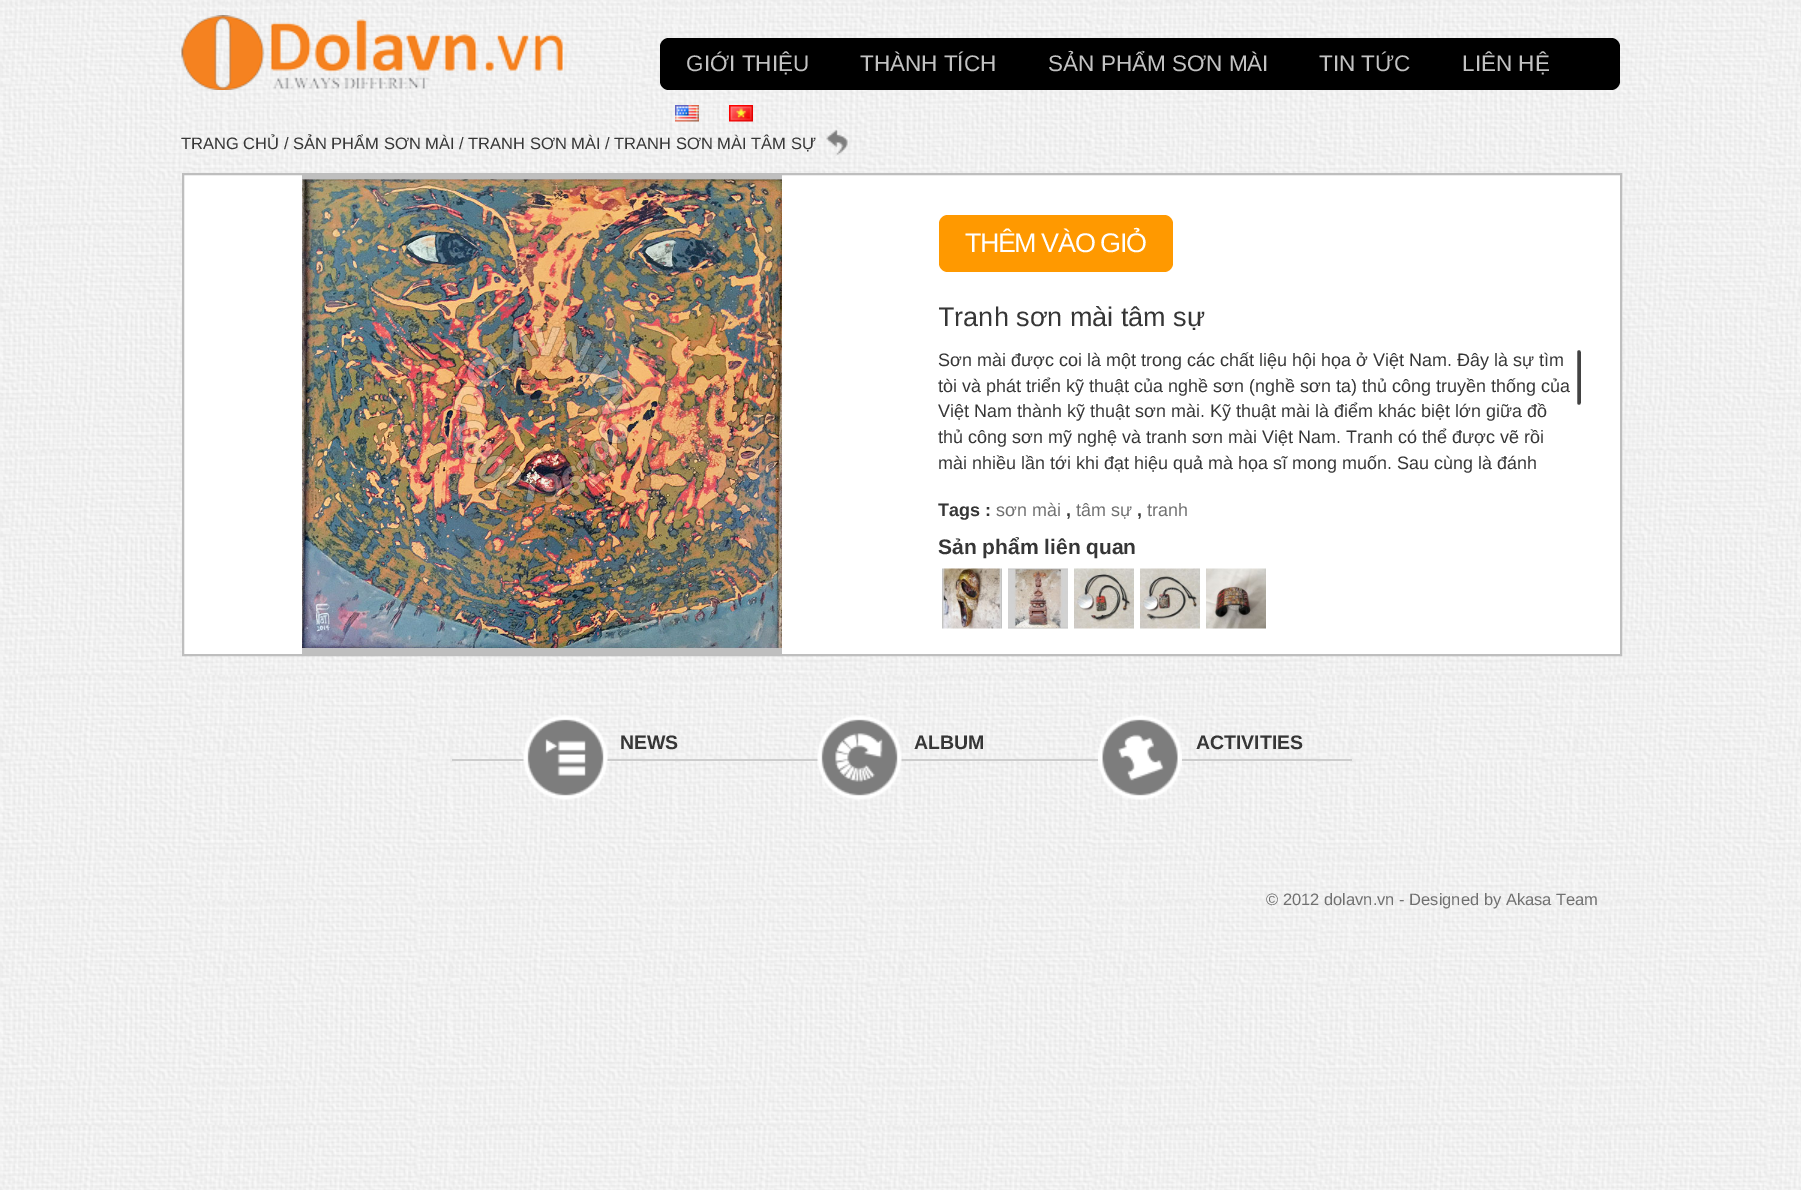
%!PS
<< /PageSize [1801 1190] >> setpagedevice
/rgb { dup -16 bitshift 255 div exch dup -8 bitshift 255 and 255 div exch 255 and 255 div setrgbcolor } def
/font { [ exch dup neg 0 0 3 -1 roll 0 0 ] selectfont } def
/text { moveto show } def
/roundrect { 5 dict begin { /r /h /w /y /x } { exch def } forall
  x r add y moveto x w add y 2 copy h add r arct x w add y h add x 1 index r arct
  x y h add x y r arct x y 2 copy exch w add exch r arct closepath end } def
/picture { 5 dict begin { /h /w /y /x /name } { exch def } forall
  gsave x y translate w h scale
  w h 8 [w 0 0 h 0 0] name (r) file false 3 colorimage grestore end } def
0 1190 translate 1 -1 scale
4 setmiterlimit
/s1 { /LiberationSans-Regular 22.5 font 16#C2C2C2 rgb } def
/s2 { /LiberationSans-Regular 16.5 font 16#363636 rgb } def
/s3 { /LiberationSans-Regular 27 font 16#363636 rgb } def
/s4 { /LiberationSans-Regular 18 font 16#363636 rgb } def
/s5 { /LiberationSans-Bold 18 font 16#363636 rgb } def
/s6 { /LiberationSans-Regular 18 font 16#707070 rgb } def
/s7 { /LiberationSans-Bold 21 font 16#363636 rgb } def
/s8 { /LiberationSans-Bold 19.5 font 16#363636 rgb } def
/s9 { /LiberationSans-Regular 16.5 font 16#707070 rgb } def
16#FFFFFF rgb
0 0 1801 1190 rectfill
(pic1.raw) 0 0 1801 1190 picture
(pic2.raw) 181 15 382 75 picture
16#000000 rgb
660 38 960 52 9 roundrect fill
s1
(GIỚI THIỆU) 686 71 text
(THÀNH TÍCH) 860 71 text
(SẢN PHẨM SƠN MÀI) 1048 71 text
(TIN TỨC) 1319 71 text
(LIÊN HỆ) 1462 71 text
(pic3.raw) 675 105 24 17 picture
(pic4.raw) 729 105 24 17 picture
s2
(TRANG CHỦ / SẢN PHẨM SƠN MÀI / TRANH SƠN MÀI / TRANH SƠN MÀI TÂM SỰ) 181 149 text
(pic5.raw) 826 129 22 27 picture
16#FFFFFF rgb
183 174 moveto 1621 174 lineto 1621 655 lineto 183 655 lineto closepath gsave fill grestore
16#BEBEBE rgb
2 setlinewidth
stroke
(pic6.raw) 302 175 480 479 picture
16#FF9900 rgb
939 215 234 57 9 roundrect fill
/LiberationSans-Regular 27 font
16#FFFFFF rgb
965 252 moveto -1.5 0 (THÊM VÀO GIỎ) ashow
gsave
939 302 644 31 rectclip
s3
(Tranh sơn mài tâm sự) 938 326 text
grestore
s4
(Sơn mài được coi là một trong các chất liệu hội họa ở Việt Nam. Đây là sự tìm) 938 366 text
(tòi và phát triển kỹ thuật của nghề sơn \(nghề sơn ta\) thủ công truyền thống của) 938 392 text
(Việt Nam thành kỹ thuật sơn mài. Kỹ thuật mài là điểm khác biệt lớn giữa đồ) 938 417 text
(thủ công sơn mỹ nghệ và tranh sơn mài Việt Nam. Tranh có thể được vẽ rồi) 938 443 text
(mài nhiều lần tới khi đạt hiệu quả mà họa sĩ mong muốn. Sau cùng là đánh) 938 469 text
s5
(Tags :) 938 516 text
s6
(sơn mài) 996 516 text
s5
(,) 1066 516 text
s6
(tâm sự) 1076 516 text
s5
(,) 1137 516 text
s6
(tranh) 1147 516 text
s7
(Sản phẩm liên quan) 938 554 text
(pic7.raw) 942 568 60 61 picture
(pic8.raw) 1008 568 60 61 picture
(pic9.raw) 1074 568 60 61 picture
(pic10.raw) 1140 568 60 61 picture
(pic11.raw) 1206 568 60 61 picture
16#CCCCCC rgb
452 759 900 2 rectfill
(pic12.raw) 523 715 85 85 picture
s8
(NEWS) 620 749 text
(pic13.raw) 545 739 41 37 picture
(pic14.raw) 817 715 85 85 picture
(pic15.raw) 835 733 48 49 picture
(ALBUM) 914 749 text
(pic16.raw) 1098 715 84 85 picture
(pic17.raw) 1118 734 46 47 picture
(ACTIVITIES) 1196 749 text
16#424242 rgb
1576 349 6 57 3 roundrect gsave fill grestore
16#FFFFFF rgb
stroke
s9
(© 2012 dolavn.vn - Designed by Akasa Team) 1266 905 text
showpage
